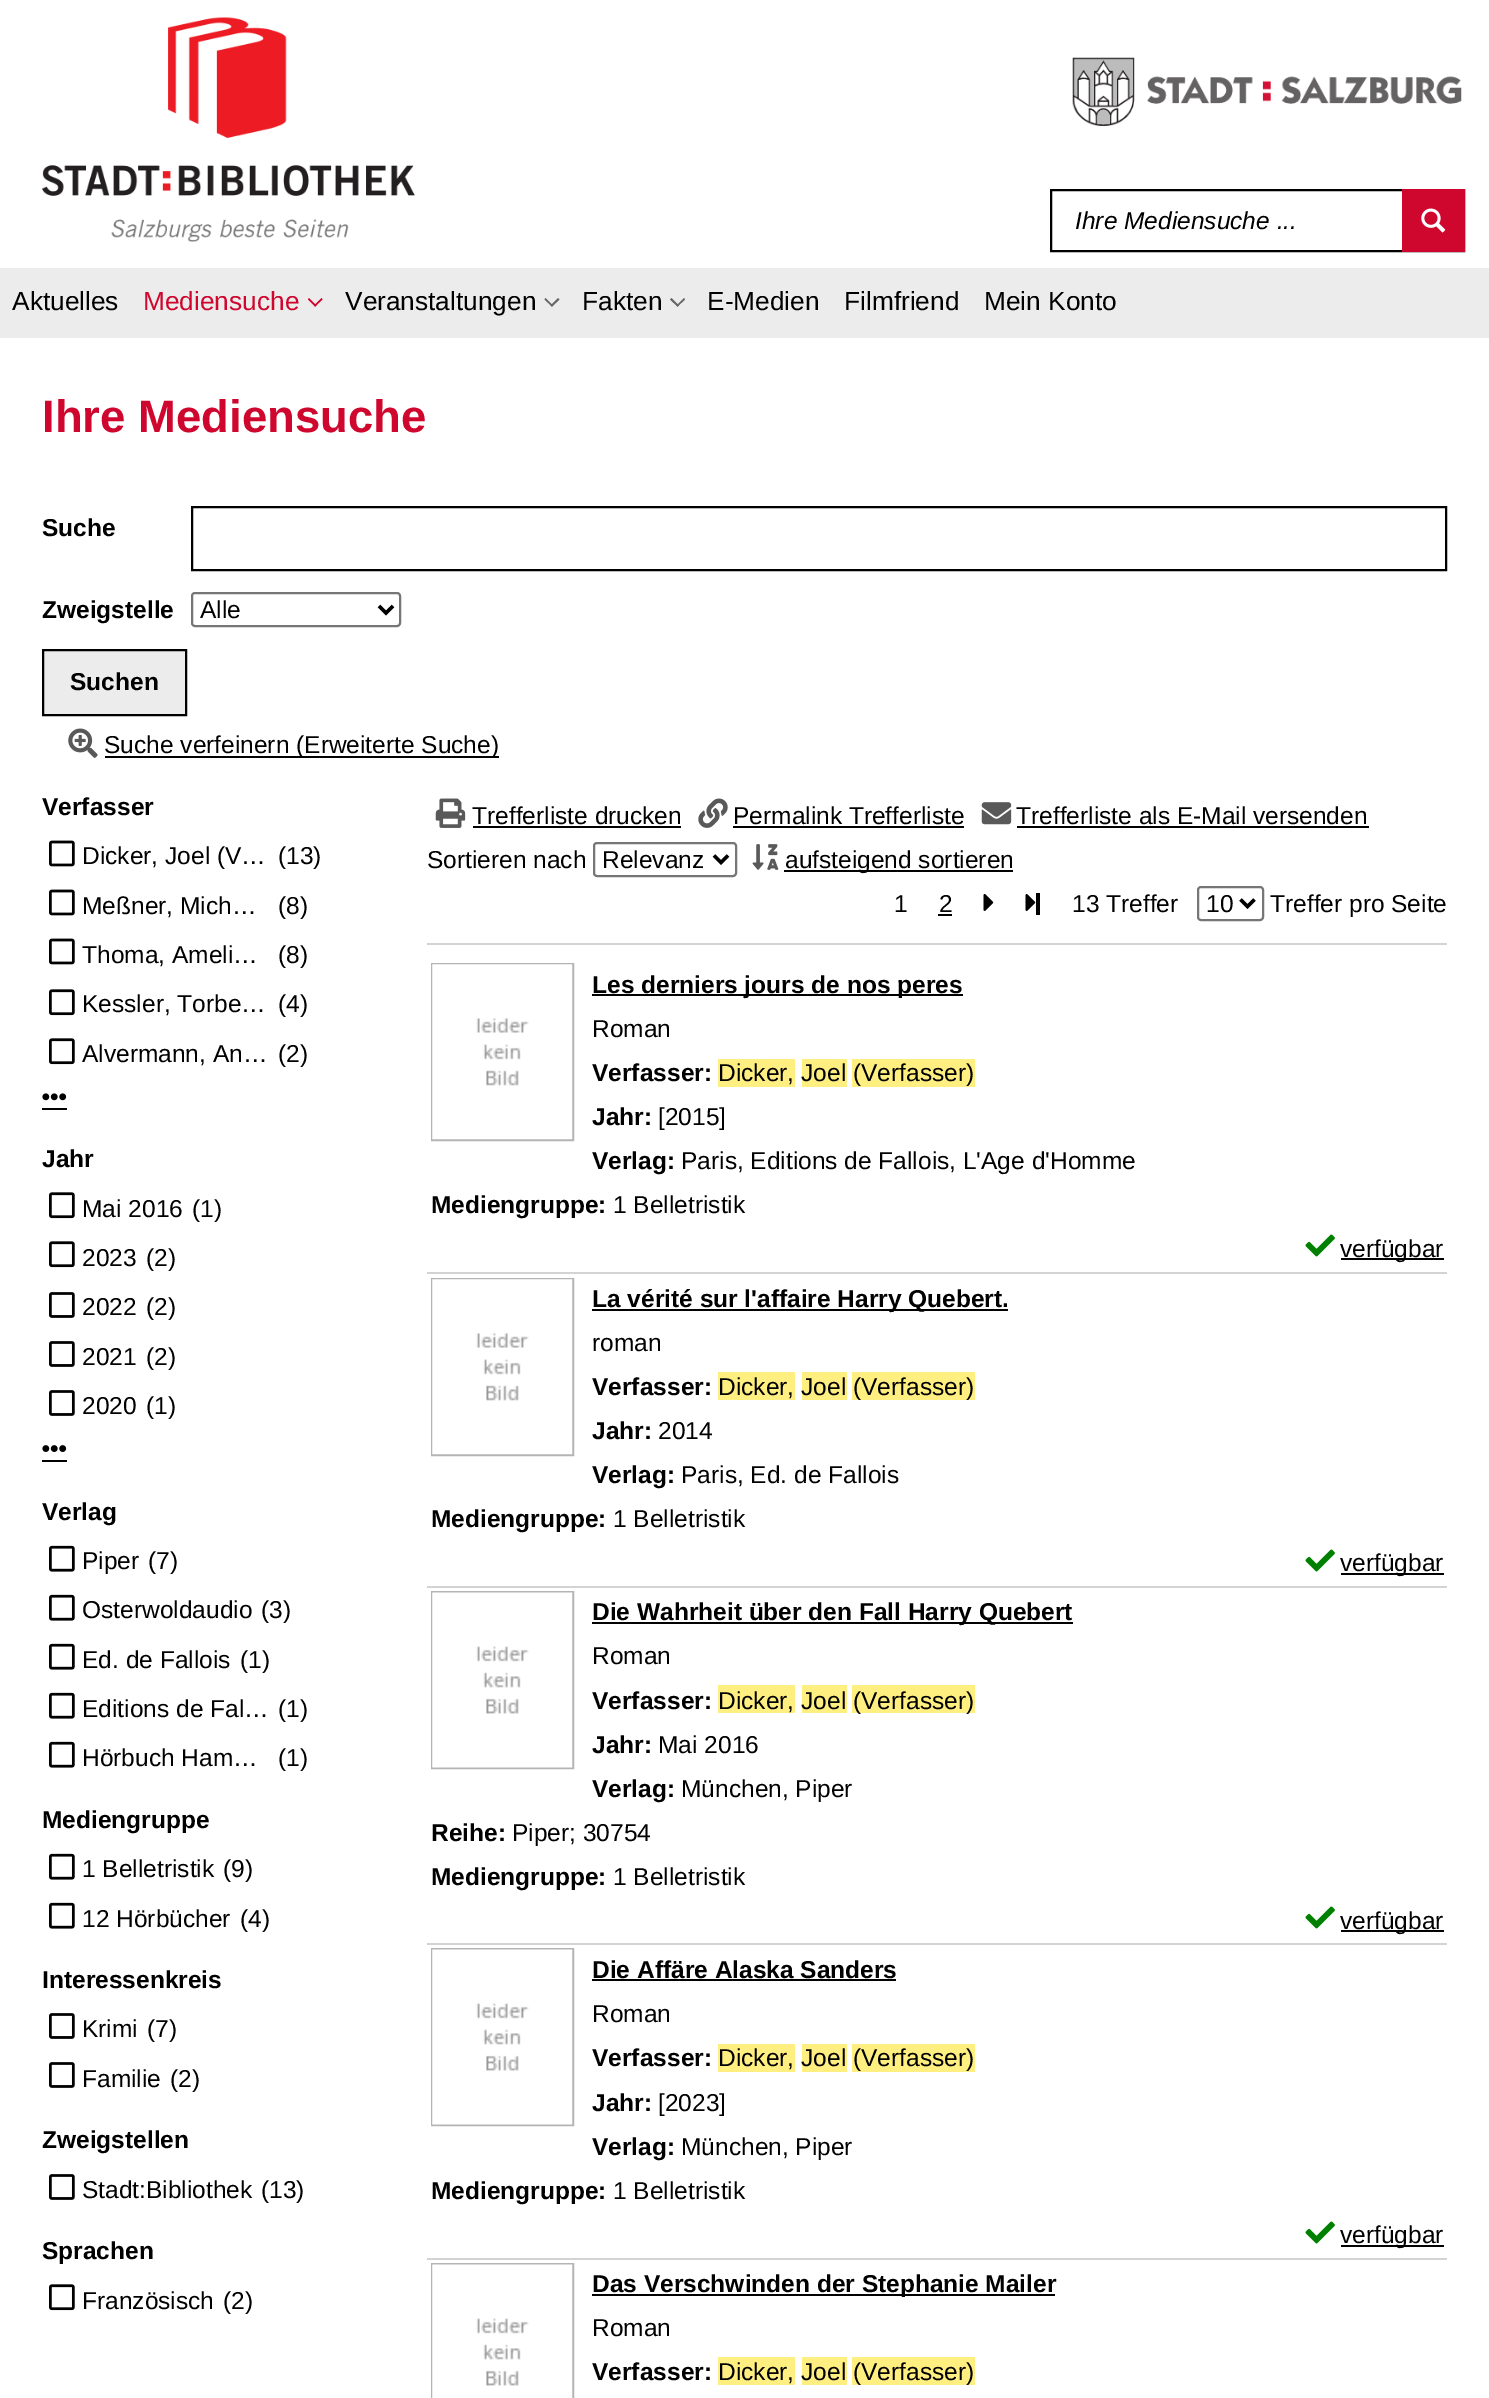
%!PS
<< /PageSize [1489 2398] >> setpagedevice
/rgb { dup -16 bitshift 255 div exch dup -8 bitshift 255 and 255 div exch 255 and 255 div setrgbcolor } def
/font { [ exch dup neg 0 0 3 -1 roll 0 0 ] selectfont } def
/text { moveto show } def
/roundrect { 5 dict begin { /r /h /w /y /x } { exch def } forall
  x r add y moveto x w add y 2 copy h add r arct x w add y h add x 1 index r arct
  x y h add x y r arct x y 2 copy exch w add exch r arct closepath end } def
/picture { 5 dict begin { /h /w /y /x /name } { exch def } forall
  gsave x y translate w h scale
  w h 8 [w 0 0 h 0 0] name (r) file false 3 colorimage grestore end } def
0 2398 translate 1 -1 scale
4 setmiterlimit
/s1 { /LiberationSans-Italic 24.5 font 16#000000 rgb } def
/s2 { /LiberationSans-Regular 26.25 font 16#000000 rgb } def
/s3 { /LiberationSans-Regular 26.25 font 16#CF072F rgb } def
/s4 { /LiberationSans-Bold 45.5 font 16#CF072F rgb } def
/s5 { /LiberationSans-Bold 24.5 font 16#000000 rgb } def
/s6 { /LiberationSans-Regular 24.5 font 16#000000 rgb } def
16#FFFFFF rgb
0 0 1489 2398 rectfill
(pic1.raw) 42 17 373 225 picture
(pic2.raw) 1072 57 390 69 picture
16#000000 rgb
2 setlinewidth
1051 190 413 61 rectstroke
s1
(Ihre Mediensuche ...) 1075 229 text
16#CF072F rgb
1402 189 63 63 rectfill
(pic3.raw) 1421 208 25 25 picture
16#ECECEC rgb
0 268 1489 70 rectfill
s2
(Aktuelles) 12 310 text
s3
(Mediensuche) 143 310 text
321.5 298 moveto 322.5 299.5 lineto 315 306.5 lineto 314 305.5 lineto closepath fill
309 298 moveto 316.5 305.5 lineto 315 306.5 lineto 308 299.5 lineto closepath fill
s2
(Veranstaltungen) 345 310 text
16#666666 rgb
558 298 moveto 559.5 299.5 lineto 552 306.5 lineto 550.5 305.5 lineto closepath fill
545.5 298 moveto 553 305.5 lineto 552 306.5 lineto 544.5 299.5 lineto closepath fill
s2
(Fakten) 582 310 text
16#666666 rgb
684 298 moveto 685 299.5 lineto 677.5 306.5 lineto 676.5 305.5 lineto closepath fill
671.5 298 moveto 679 305.5 lineto 677.5 306.5 lineto 670 299.5 lineto closepath fill
s2
(E-Medien) 707 310 text
(Filmfriend) 844 310 text
(Mein Konto) 984 310 text
s4
(Ihre Mediensuche) 42 432 text
s5
(Suche) 42 536 text
192 507 1254 63 rectstroke
(Zweigstelle) 42 618 text
16#767676 rgb
192 593 208 33 3 roundrect stroke
16#000000 rgb
3.5 setlinewidth
379 606 moveto 386 613 lineto 393 606 lineto stroke
s6
(Alle) 200 618 text
16#ECECEC rgb
43 650 moveto 186 650 lineto 186 715 lineto 43 715 lineto closepath gsave fill grestore
16#000000 rgb
2 setlinewidth
stroke
s5
(Suchen) 70 690 text
(pic4.raw) 68 728 30 30 picture
105 756 394 2 rectfill
s6
(Suche verfeinern \(Erweiterte Suche\)) 104 753 text
s5
(Verfasser) 42 815 text
(pic5.raw) 49 840 26 27 picture
s6
(Dicker, Joel \(V…) 82 864 text
(\(13\)) 278 864 text
(pic5.raw) 49 889 26 27 picture
(Meßner, Mich…) 82 914 text
(\(8\)) 278 914 text
(pic5.raw) 49 938 26 27 picture
(Thoma, Ameli…) 82 963 text
(\(8\)) 278 963 text
(pic6.raw) 49 989 26 27 picture
(Kessler, Torbe…) 82 1012 text
(\(4\)) 278 1012 text
(pic6.raw) 49 1038 26 27 picture
(Alvermann, An…) 82 1062 text
(\(2\)) 278 1062 text
(pic7.raw) 42 1093 25 8 picture
42 1108 25 2 rectfill
s5
(Jahr) 42 1167 text
(pic6.raw) 49 1192 26 27 picture
s6
(Mai 2016) 82 1217 text
(\(1\)) 192 1217 text
(pic6.raw) 49 1241 26 27 picture
(2023) 82 1266 text
(\(2\)) 146 1266 text
(pic8.raw) 49 1292 26 26 picture
(2022) 82 1315 text
(\(2\)) 146 1315 text
(pic8.raw) 49 1341 26 26 picture
(2021) 82 1365 text
(\(2\)) 146 1365 text
(pic8.raw) 49 1390 26 26 picture
(2020) 82 1414 text
(\(1\)) 146 1414 text
(pic9.raw) 42 1445 25 7 picture
42 1460 25 2 rectfill
s5
(Verlag) 42 1520 text
(pic10.raw) 49 1545 26 27 picture
s6
(Piper) 82 1569 text
(\(7\)) 148 1569 text
(pic10.raw) 49 1594 26 27 picture
(Osterwoldaudio) 82 1618 text
(\(3\)) 261 1618 text
(pic10.raw) 49 1643 26 27 picture
(Ed. de Fallois) 82 1668 text
(\(1\)) 240 1668 text
(pic10.raw) 49 1692 26 27 picture
(Editions de Fal…) 82 1717 text
(\(1\)) 278 1717 text
(pic10.raw) 49 1741 26 27 picture
(Hörbuch Ham…) 82 1766 text
(\(1\)) 278 1766 text
s5
(Mediengruppe) 42 1828 text
(pic10.raw) 49 1853 26 27 picture
s6
(1 Belletristik) 82 1877 text
(\(9\)) 223 1877 text
(pic10.raw) 49 1902 26 27 picture
(12 Hörbücher) 82 1927 text
(\(4\)) 240 1927 text
s5
(Interessenkreis) 42 1988 text
(pic8.raw) 49 2013 26 26 picture
s6
(Krimi) 82 2037 text
(\(7\)) 147 2037 text
(pic8.raw) 49 2062 26 26 picture
(Familie) 82 2087 text
(\(2\)) 170 2087 text
s5
(Zweigstellen) 42 2148 text
(pic8.raw) 49 2174 26 26 picture
s6
(Stadt:Bibliothek) 82 2198 text
(\(13\)) 261 2198 text
s5
(Sprachen) 42 2259 text
(pic6.raw) 49 2284 26 27 picture
s6
(Französisch) 82 2309 text
(\(2\)) 223 2309 text
(pic11.raw) 435 798 31 30 picture
(Trefferliste drucken) 472 824 text
473 826 208 2 rectfill
(pic12.raw) 698 798 30 30 picture
(Permalink Trefferliste) 733 824 text
733 826 231 2 rectfill
(pic13.raw) 981 802 31 23 picture
(Trefferliste als E-Mail versenden) 1016 824 text
1017 826 352 2 rectfill
(Sortieren nach) 427 868 text
16#767676 rgb
594 843 142 33 3 roundrect stroke
16#000000 rgb
3.5 setlinewidth
714 855.5 moveto 721 862.5 lineto 728 855.5 lineto stroke
(Relevanz) 602 868 text
(pic14.raw) 752 844 27 26 picture
784 870 229 2 rectfill
(aufsteigend sortieren) 785 868 text
(1) 894 912 text
(2) 939 912 text
938 914 14 2 rectfill
(pic15.raw) 983 894 11 17 picture
1036 893 4 22 rectfill
(pic15.raw) 1025 894 11 17 picture
(13 Treffer) 1072 912 text
16#767676 rgb
2 setlinewidth
1198 887 65 33 3 roundrect stroke
16#000000 rgb
3.5 setlinewidth
1240.5 899.5 moveto 1247.5 906.5 lineto 1254.5 899.5 lineto stroke
(10) 1206 912 text
(Treffer pro Seite) 1270 912 text
16#D3D3D3 rgb
427 943 1020 2 rectfill
16#B4B4B4 rgb
2 setlinewidth
432 964 141 176 rectstroke
(pic16.raw) 432 964 141 176 picture
16#000000 rgb
592 994 371 2 rectfill
s5
(Les derniers jours de nos peres) 592 993 text
s6
(Roman) 592 1037 text
s5
(Verfasser:) 592 1081 text
16#FFEE80 rgb
718 1059 77 28 rectfill
s6
(Dicker,) 718 1081 text
16#FFEE80 rgb
802 1059 45 28 rectfill
s6
(Joel) 801 1081 text
16#FFEE80 rgb
852 1059 123 28 rectfill
s6
(\(Verfasser\)) 853 1081 text
s5
(Jahr:) 592 1125 text
s6
([2015]) 658 1125 text
s5
(Verlag:) 592 1169 text
s6
(Paris, Editions de Fallois, L'Age d'Homme) 681 1169 text
s5
(Mediengruppe:) 431 1213 text
s6
(1 Belletristik) 613 1213 text
(pic17.raw) 1305 1234 30 23 picture
1341 1258 103 2 rectfill
(verfügbar) 1340 1257 text
16#D3D3D3 rgb
427 1272 1020 2 rectfill
16#B4B4B4 rgb
432 1279 141 176 rectstroke
(pic16.raw) 432 1279 141 176 picture
16#000000 rgb
592 1309 416 2 rectfill
s5
(La vérité sur l'affaire Harry Quebert.) 592 1307 text
s6
(roman) 592 1351 text
s5
(Verfasser:) 592 1395 text
16#FFEE80 rgb
718 1372 77 28 rectfill
s6
(Dicker,) 718 1395 text
16#FFEE80 rgb
802 1372 45 28 rectfill
s6
(Joel) 801 1395 text
16#FFEE80 rgb
852 1372 123 28 rectfill
s6
(\(Verfasser\)) 853 1395 text
s5
(Jahr:) 592 1439 text
s6
(2014) 658 1439 text
s5
(Verlag:) 592 1483 text
s6
(Paris, Ed. de Fallois) 681 1483 text
s5
(Mediengruppe:) 431 1527 text
s6
(1 Belletristik) 613 1527 text
(pic17.raw) 1305 1549 30 23 picture
1341 1573 103 2 rectfill
(verfügbar) 1340 1571 text
16#D3D3D3 rgb
427 1586 1020 2 rectfill
16#B4B4B4 rgb
432 1592 141 176 rectstroke
(pic18.raw) 432 1592 141 176 picture
16#000000 rgb
592 1622 481 2 rectfill
s5
(Die Wahrheit über den Fall Harry Quebert) 592 1620 text
s6
(Roman) 592 1664 text
s5
(Verfasser:) 592 1709 text
16#FFEE80 rgb
718 1685 77 28 rectfill
s6
(Dicker,) 718 1709 text
16#FFEE80 rgb
802 1685 45 28 rectfill
s6
(Joel) 801 1709 text
16#FFEE80 rgb
852 1685 123 28 rectfill
s6
(\(Verfasser\)) 853 1709 text
s5
(Jahr:) 592 1753 text
s6
(Mai 2016) 658 1753 text
s5
(Verlag:) 592 1797 text
s6
(München, Piper) 681 1797 text
s5
(Reihe:) 431 1841 text
s6
(Piper; 30754) 512 1841 text
s5
(Mediengruppe:) 431 1885 text
s6
(1 Belletristik) 613 1885 text
(pic17.raw) 1305 1906 30 23 picture
1341 1930 103 2 rectfill
(verfügbar) 1340 1929 text
16#D3D3D3 rgb
427 1943 1020 2 rectfill
16#B4B4B4 rgb
432 1949 141 176 rectstroke
(pic19.raw) 432 1949 141 176 picture
s5
(Die Affäre Alaska Sanders) 592 1978 text
592 1979 304 2 rectfill
s6
(Roman) 592 2022 text
s5
(Verfasser:) 592 2066 text
16#FFEE80 rgb
718 2044 77 28 rectfill
s6
(Dicker,) 718 2066 text
16#FFEE80 rgb
802 2044 45 28 rectfill
s6
(Joel) 801 2066 text
16#FFEE80 rgb
852 2044 123 28 rectfill
s6
(\(Verfasser\)) 853 2066 text
s5
(Jahr:) 592 2111 text
s6
([2023]) 658 2111 text
s5
(Verlag:) 592 2155 text
s6
(München, Piper) 681 2155 text
s5
(Mediengruppe:) 431 2199 text
s6
(1 Belletristik) 613 2199 text
(pic17.raw) 1305 2221 30 23 picture
1341 2245 103 2 rectfill
(verfügbar) 1340 2243 text
16#D3D3D3 rgb
427 2258 1020 2 rectfill
16#B4B4B4 rgb
432 2264 141 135 rectstroke
(pic20.raw) 432 2264 141 134 picture
16#000000 rgb
592 2294 463 2 rectfill
s5
(Das Verschwinden der Stephanie Mailer) 592 2292 text
s6
(Roman) 592 2336 text
s5
(Verfasser:) 592 2380 text
16#FFEE80 rgb
718 2357 77 28 rectfill
s6
(Dicker,) 718 2380 text
16#FFEE80 rgb
802 2357 45 28 rectfill
s6
(Joel) 801 2380 text
16#FFEE80 rgb
852 2357 123 28 rectfill
s6
(\(Verfasser\)) 853 2380 text
showpage
